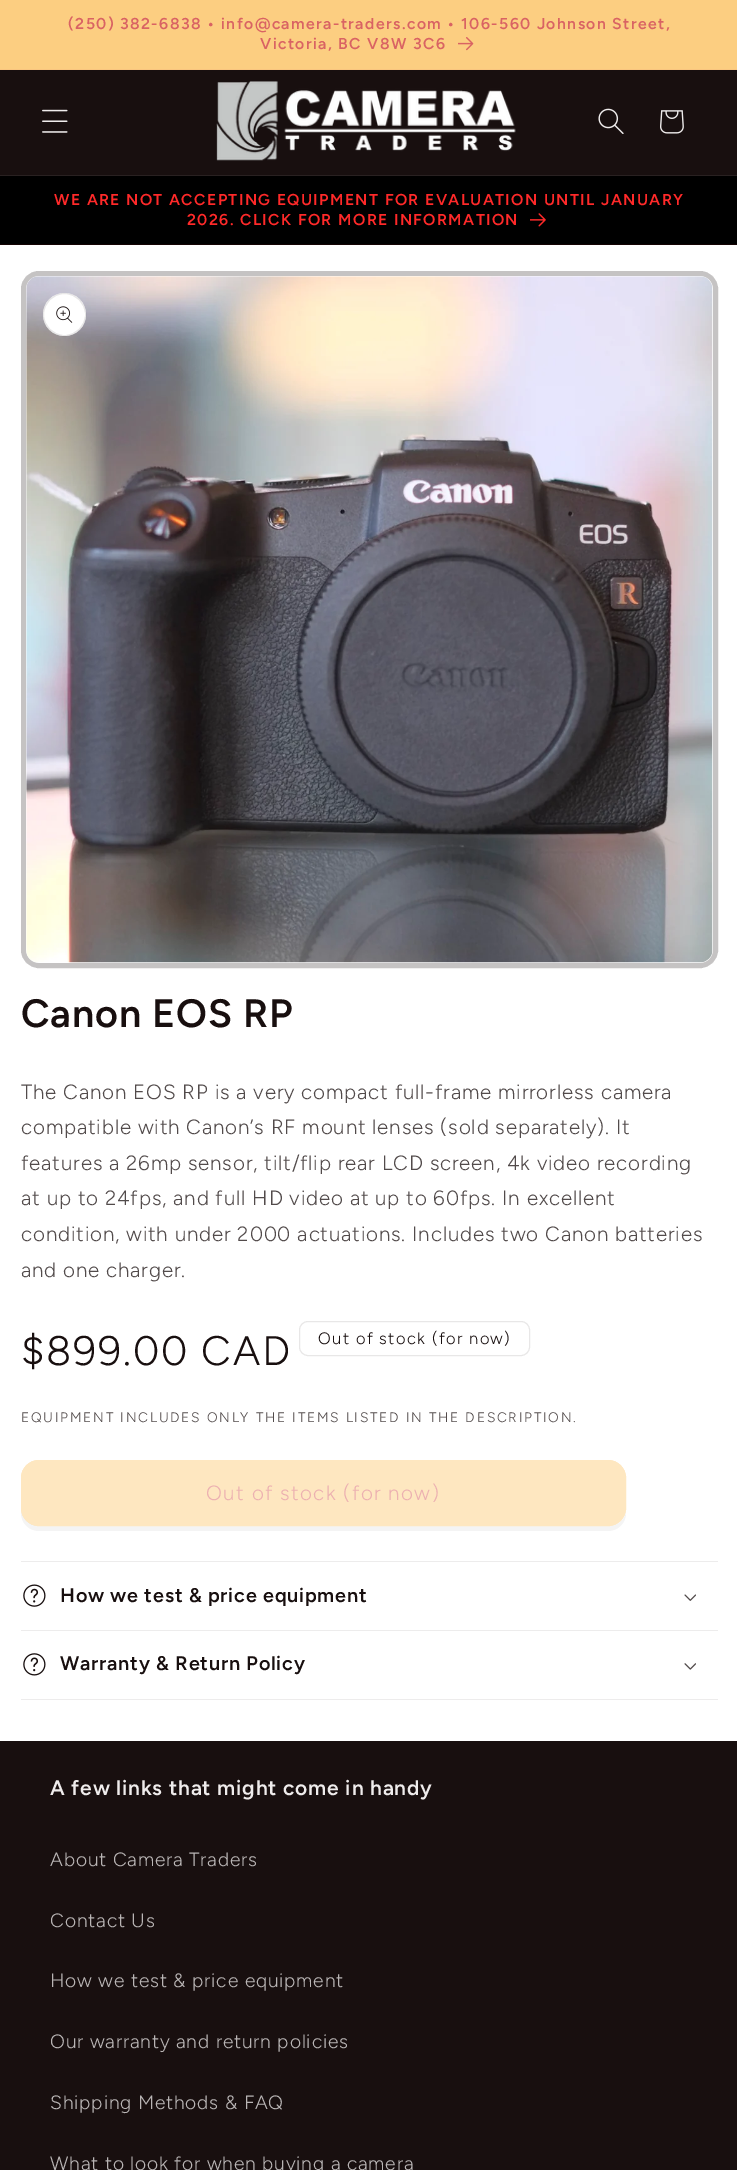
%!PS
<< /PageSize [737 2170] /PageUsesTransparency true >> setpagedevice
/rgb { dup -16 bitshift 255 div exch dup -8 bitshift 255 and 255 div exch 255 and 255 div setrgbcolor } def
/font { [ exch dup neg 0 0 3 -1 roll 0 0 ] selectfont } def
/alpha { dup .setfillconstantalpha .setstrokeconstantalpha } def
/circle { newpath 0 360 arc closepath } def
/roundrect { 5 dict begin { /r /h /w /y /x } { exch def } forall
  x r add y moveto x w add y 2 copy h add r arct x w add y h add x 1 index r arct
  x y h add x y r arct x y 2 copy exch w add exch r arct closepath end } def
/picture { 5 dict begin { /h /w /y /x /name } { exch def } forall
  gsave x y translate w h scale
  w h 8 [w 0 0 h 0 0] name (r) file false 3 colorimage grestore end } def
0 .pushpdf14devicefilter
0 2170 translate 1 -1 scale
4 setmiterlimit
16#FFFFFF rgb
0 0 737 2170 rectfill
16#FCCE81 rgb
0 0 737 69 rectfill
16#F9C57F rgb
0 69 737 1 rectfill
/Figtree-SemiBold 15.75 font
16#D96363 rgb
68 29 moveto 1.38 0 (\(250\) 382-6838 • info@camera-traders.com • 106-560 Johnson Street,) ashow
260 49 moveto 1.38 0 (Victoria, BC V8W 3C6) ashow
(pic1.raw) 458 37 16 14 picture
16#180F0F rgb
0 70 737 105 rectfill
16#292121 rgb
0 175 737 1 rectfill
(pic2.raw) 42 109 26 24 picture
(pic3.raw) 216 81 300 80 picture
(pic4.raw) 598 108 26 26 picture
(pic5.raw) 660 110 24 24 picture
16#000000 rgb
0 176 737 68 rectfill
16#140303 rgb
0 244 737 1 rectfill
16#FF2929 rgb
54 205 moveto 1.38 0 (WE ARE NOT ACCEPTING EQUIPMENT FOR EVALUATION UNTIL JANUARY) ashow
187 225 moveto 1.38 0 (2026. CLICK FOR MORE INFORMATION) ashow
(pic6.raw) 530 213 16 14 picture
16#C5C3C3 rgb
5 setlinewidth
23.5 273.5 692 692 15.5 roundrect stroke
(pic7.raw) 26 276 687 687 picture
16#FFFFFF rgb
64.5 314.5 21.5 circle fill
0.1 alpha
16#180F0F rgb
1 setlinewidth
64.5 314.5 21 circle stroke
1 alpha
(pic8.raw) 56 306 17 17 picture
/Figtree-SemiBold 39.5 font
21 1027 moveto 0.8 0 (Canon EOS RP) ashow
/Figtree-Light 20.6 font
16#524B4B rgb
21 1099 moveto 0.83 0 (The Canon EOS RP is a very compact full-frame mirrorless camera) ashow
21 1134 moveto 0.83 0 (compatible with Canon’s RF mount lenses \(sold separately\). It) ashow
21 1170 moveto 0.83 0 (features a 26mp sensor, tilt/flip rear LCD screen, 4k video recording) ashow
21 1205 moveto 0.83 0 (at up to 24fps, and full HD video at up to 60fps. In excellent) ashow
21 1241 moveto 0.83 0 (condition, with under 2000 actuations. Includes two Canon batteries) ashow
21 1277 moveto 0.83 0 (and one charger.) ashow
/Figtree-Light 41.25 font
16#180F0F rgb
21 1365 moveto 1.8 0 ($899.00 CAD) ashow
16#E8E7E7 rgb
299.5 1321.5 230 34 8.5 roundrect stroke
/Figtree-Light 16.5 font
16#180F0F rgb
318 1344 moveto 1.38 0 (Out of stock \(for now\)) ashow
/Figtree-Light 13.75 font
16#524B4B rgb
21 1422 moveto 1.8 0 (EQUIPMENT INCLUDES ONLY THE ITEMS LISTED IN THE DESCRIPTION.) ashow
16#FEE7C0 rgb
21 1460 605 66 18 roundrect fill
0.1 alpha
16#929292 rgb
21 1480 moveto 21 1513 lineto 21 1523 29 1531 39 1531 curveto 608 1531 lineto 618 1531 626 1523 626 1513 curveto 626 1512 lineto 625 1520 617 1526 609 1526 curveto 39 1526 lineto 29 1526 21 1518 21 1509 curveto closepath fill
1 alpha
16#FEE7C0 rgb
3 setlinewidth
22.5 1461.5 602 63 16.5 roundrect stroke
/Figtree-Light 20.6 font
16#ECB1B1 rgb
206 1500 moveto 1.38 0 (Out of stock \(for now\)) ashow
16#EDECEC rgb
21 1561 697 1 rectfill
21 1630 697 1 rectfill
(pic9.raw) 23 1584 23 23 picture
/Figtree-SemiBold 19.75 font
16#180F0F rgb
60 1602 moveto 0.8 0 (How we test & price equipment) ashow
(pic10.raw) 684 1594 12 7 picture
16#EDECEC rgb
21 1699 697 1 rectfill
(pic11.raw) 23 1653 23 23 picture
16#180F0F rgb
60 1670 moveto 0.8 0 (Warranty & Return Policy) ashow
(pic12.raw) 684 1663 12 7 picture
0 1741 737 429 rectfill
/Figtree-SemiBold 21 font
16#EFECEC rgb
50 1795 moveto 0.8 0 (A few links that might come in handy) ashow
/Figtree-Light 19.25 font
16#B9B5B5 rgb
50 1866 moveto 0.83 0 (About Camera Traders) ashow
50 1927 moveto 0.83 0 (Contact Us) ashow
50 1987 moveto 0.83 0 (How we test & price equipment) ashow
50 2048 moveto 0.83 0 (Our warranty and return policies) ashow
50 2109 moveto 0.83 0 (Shipping Methods & FAQ) ashow
50 2170 moveto 0.83 0 (What to look for when buying a camera) ashow
.poppdf14devicefilter showpage
